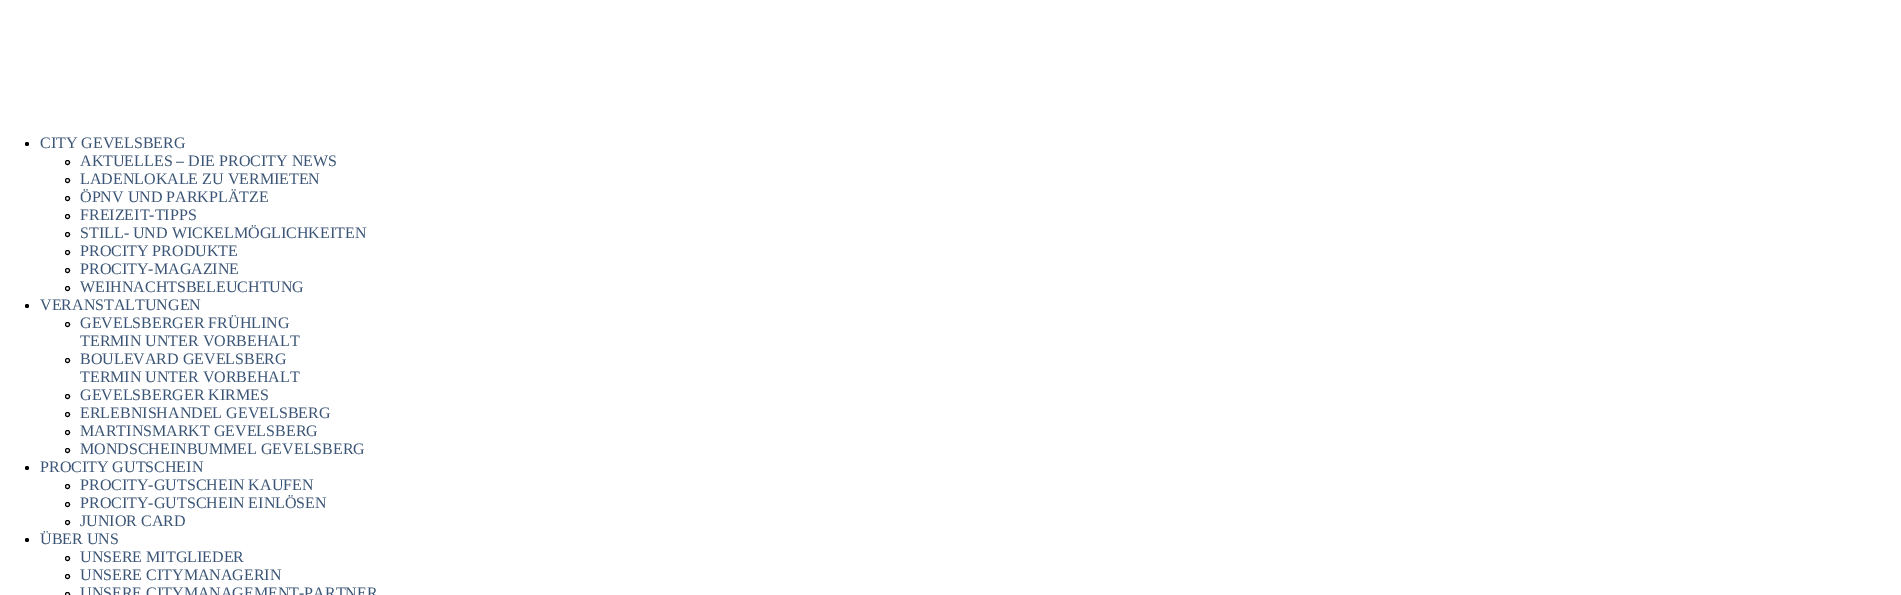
%!PS
<< /PageSize [1901 595] >> setpagedevice
/rgb { dup -16 bitshift 255 div exch dup -8 bitshift 255 and 255 div exch 255 and 255 div setrgbcolor } def
/font { [ exch dup neg 0 0 3 -1 roll 0 0 ] selectfont } def
/text { moveto show } def
/circle { newpath 0 360 arc closepath } def
0 595 translate 1 -1 scale
4 setmiterlimit
/s1 { /LiberationSerif-Regular 16 font 16#395475 rgb } def
16#FFFFFF rgb
0 0 1901 595 rectfill
16#000000 rgb
27 144 2 circle fill
s1
(CITY GEVELSBERG) 40 148 text
16#000000 rgb
67.5 162.5 2 circle stroke
s1
(AKTUELLES – DIE PROCITY NEWS) 80 166 text
16#000000 rgb
67.5 180.5 2 circle stroke
s1
(LADENLOKALE ZU VERMIETEN) 80 184 text
16#000000 rgb
67.5 198.5 2 circle stroke
s1
(ÖPNV UND PARKPLÄTZE) 80 202 text
16#000000 rgb
67.5 216.5 2 circle stroke
s1
(FREIZEIT-TIPPS) 80 220 text
16#000000 rgb
67.5 234.5 2 circle stroke
s1
(STILL- UND WICKELMÖGLICHKEITEN) 80 238 text
16#000000 rgb
67.5 252.5 2 circle stroke
s1
(PROCITY PRODUKTE) 80 256 text
16#000000 rgb
67.5 270.5 2 circle stroke
s1
(PROCITY-MAGAZINE) 80 274 text
16#000000 rgb
67.5 288.5 2 circle stroke
s1
(WEIHNACHTSBELEUCHTUNG) 80 292 text
16#000000 rgb
27 306 2 circle fill
s1
(VERANSTALTUNGEN) 40 310 text
16#000000 rgb
67.5 324.5 2 circle stroke
s1
(GEVELSBERGER FRÜHLING) 80 328 text
(TERMIN UNTER VORBEHALT) 80 346 text
16#000000 rgb
67.5 360.5 2 circle stroke
s1
(BOULEVARD GEVELSBERG) 80 364 text
(TERMIN UNTER VORBEHALT) 80 382 text
16#000000 rgb
67.5 396.5 2 circle stroke
s1
(GEVELSBERGER KIRMES) 80 400 text
16#000000 rgb
67.5 414.5 2 circle stroke
s1
(ERLEBNISHANDEL GEVELSBERG) 80 418 text
16#000000 rgb
67.5 432.5 2 circle stroke
s1
(MARTINSMARKT GEVELSBERG) 80 436 text
16#000000 rgb
67.5 450.5 2 circle stroke
s1
(MONDSCHEINBUMMEL GEVELSBERG) 80 454 text
16#000000 rgb
27 468 2 circle fill
s1
(PROCITY GUTSCHEIN) 40 472 text
16#000000 rgb
67.5 486.5 2 circle stroke
s1
(PROCITY-GUTSCHEIN KAUFEN) 80 490 text
16#000000 rgb
67.5 504.5 2 circle stroke
s1
(PROCITY-GUTSCHEIN EINLÖSEN) 80 508 text
16#000000 rgb
67.5 522.5 2 circle stroke
s1
(JUNIOR CARD) 80 526 text
16#000000 rgb
27 540 2 circle fill
s1
(ÜBER UNS) 40 544 text
16#000000 rgb
67.5 558.5 2 circle stroke
s1
(UNSERE MITGLIEDER) 80 562 text
16#000000 rgb
67.5 576.5 2 circle stroke
s1
(UNSERE CITYMANAGERIN) 80 580 text
16#000000 rgb
67.5 594.5 2 circle stroke
s1
(UNSERE CITYMANAGEMENT-PARTNER) 80 598 text
showpage
